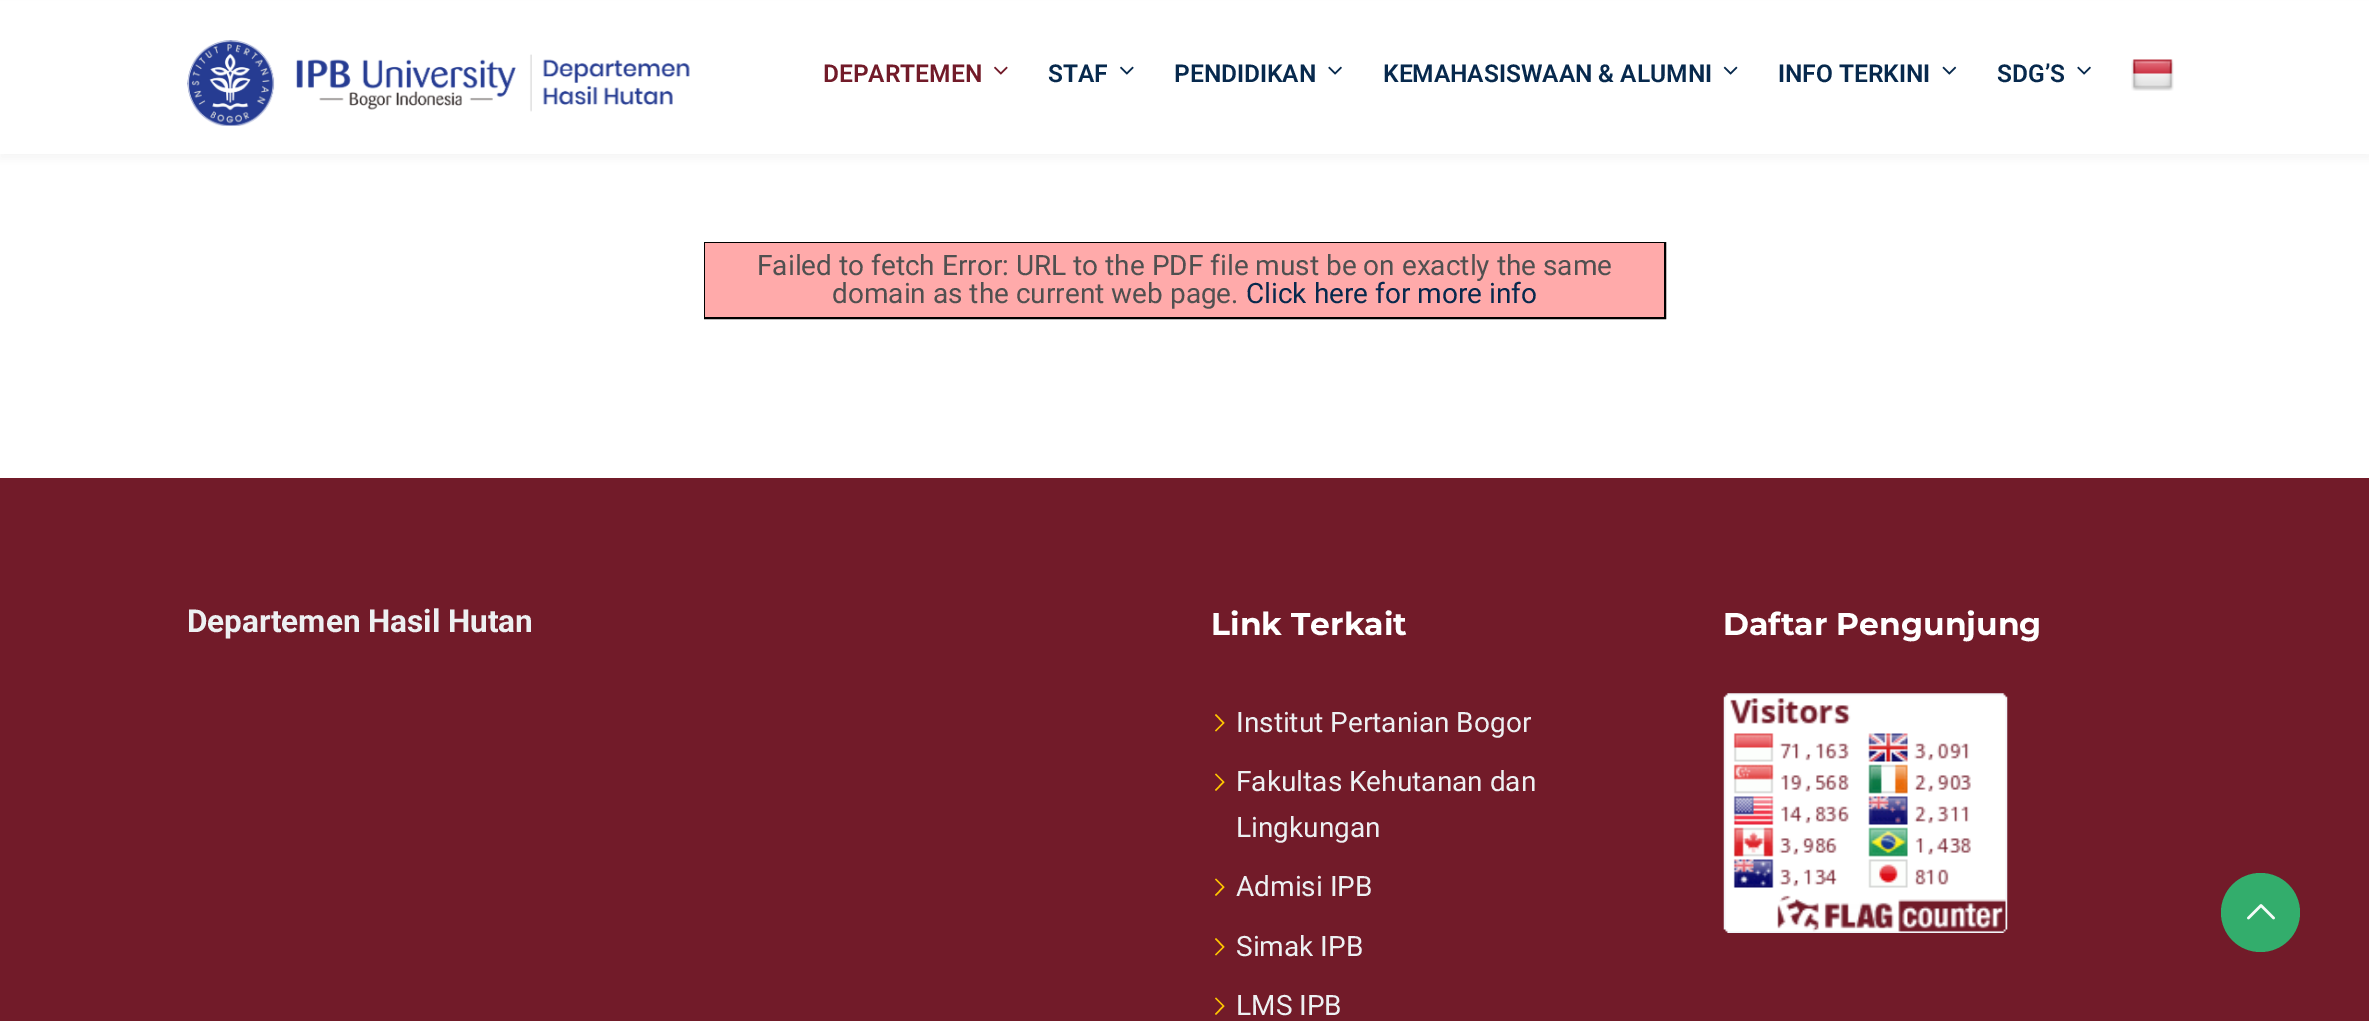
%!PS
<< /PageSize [2369 1021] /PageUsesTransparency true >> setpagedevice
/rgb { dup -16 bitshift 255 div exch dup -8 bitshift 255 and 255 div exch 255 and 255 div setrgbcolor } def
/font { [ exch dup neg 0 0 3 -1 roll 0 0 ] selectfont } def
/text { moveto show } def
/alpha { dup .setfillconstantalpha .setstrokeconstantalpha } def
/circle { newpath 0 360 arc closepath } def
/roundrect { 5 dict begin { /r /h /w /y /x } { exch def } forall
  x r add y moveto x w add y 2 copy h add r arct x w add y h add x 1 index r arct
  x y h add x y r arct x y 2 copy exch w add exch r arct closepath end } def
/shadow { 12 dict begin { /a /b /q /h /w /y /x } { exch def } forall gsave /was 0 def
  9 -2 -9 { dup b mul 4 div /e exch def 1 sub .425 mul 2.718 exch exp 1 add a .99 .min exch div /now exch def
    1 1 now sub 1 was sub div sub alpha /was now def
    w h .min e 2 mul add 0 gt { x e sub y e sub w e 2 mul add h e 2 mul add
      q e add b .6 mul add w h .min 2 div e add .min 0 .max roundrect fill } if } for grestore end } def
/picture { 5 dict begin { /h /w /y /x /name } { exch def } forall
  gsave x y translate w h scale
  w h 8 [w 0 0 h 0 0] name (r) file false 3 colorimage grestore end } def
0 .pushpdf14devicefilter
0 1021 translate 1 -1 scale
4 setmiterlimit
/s1 { /Roboto-SemiBold 24.5 font 16#721B29 rgb } def
/s2 { /Roboto-SemiBold 24.5 font 16#07294D rgb } def
/s3 { /Roboto-Regular 28 font 16#505050 rgb } def
/s4 { /Roboto-Regular 28 font 16#07294D rgb } def
/s5 { /Roboto-Bold 31.5 font 16#EDF0F2 rgb } def
/s6 { /Montserrat-Bold 31.5 font 16#FFFFFF rgb } def
/s7 { /Roboto-Regular 28 font 16#EDF0F2 rgb } def
16#FFFFFF rgb
0 0 2369 1021 rectfill
16#808080 rgb
0 5 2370 154 0 5 0.1 shadow
16#FFFFFF rgb
0 1 2369 153 rectfill
(pic1.raw) 187 40 503 86 picture
s1
(DEPARTEMEN) 823 82 text
(pic2.raw) 994 66 14 9 picture
s2
(STAF) 1048 82 text
(pic3.raw) 1120 66 14 9 picture
(PENDIDIKAN) 1174 82 text
(pic4.raw) 1328 66 14 9 picture
(KEMAHASISWAAN & ALUMNI) 1383 82 text
(pic5.raw) 1723 66 15 9 picture
(INFO TERKINI) 1778 82 text
(pic6.raw) 1942 66 15 9 picture
(SDG’S) 1997 82 text
(pic4.raw) 2077 66 14 9 picture
(pic7.raw) 2131 59 43 32 picture
16#000000 rgb
2 setlinewidth
705 243 960 75 rectstroke
16#FFAAAA rgb
705 243 959 74 rectfill
s3
(Failed to fetch Error: URL to the PDF file must be on exactly the same) 757 275 text
(domain as the current web page.) 832 303 text
s4
(Click here for more info) 1246 303 text
16#721B29 rgb
0 478 2369 543 rectfill
s5
(Departemen Hasil Hutan) 187 632 text
s6
(Link Terkait) 1211 635 text
16#FFC600 rgb
1216 714 moveto 1215 715 lineto 1222.5 723 lineto 1215 730.5 lineto 1216 731.5 lineto 1224.5 723 lineto closepath fill
s7
(Institut Pertanian Bogor) 1236 732 text
16#FFC600 rgb
1216 773.5 moveto 1215 774.5 lineto 1222.5 782 lineto 1215 790 lineto 1216 791 lineto 1224.5 782 lineto closepath fill
s7
(Fakultas Kehutanan dan) 1236 791 text
(Lingkungan) 1236 837 text
16#FFC600 rgb
1216 878.5 moveto 1215 879.5 lineto 1222.5 887 lineto 1215 895 lineto 1216 896 lineto 1224.5 887 lineto closepath fill
s7
(Admisi IPB) 1236 896 text
16#FFC600 rgb
1216 938 moveto 1215 939 lineto 1222.5 947 lineto 1215 954.5 lineto 1216 955.5 lineto 1224.5 947 lineto closepath fill
s7
(Simak IPB) 1236 956 text
16#FFC600 rgb
1216 997.5 moveto 1215 998.5 lineto 1222.5 1006 lineto 1215 1014 lineto 1216 1015 lineto 1224.5 1006 lineto closepath fill
s7
(LMS IPB) 1236 1015 text
s6
(Daftar Pengunjung) 1723 635 text
(pic8.raw) 1723 693 285 240 picture
16#33AD6C rgb
2260.5 912.5 39.5 circle fill
(pic9.raw) 2247 904 28 16 picture
.poppdf14devicefilter showpage
